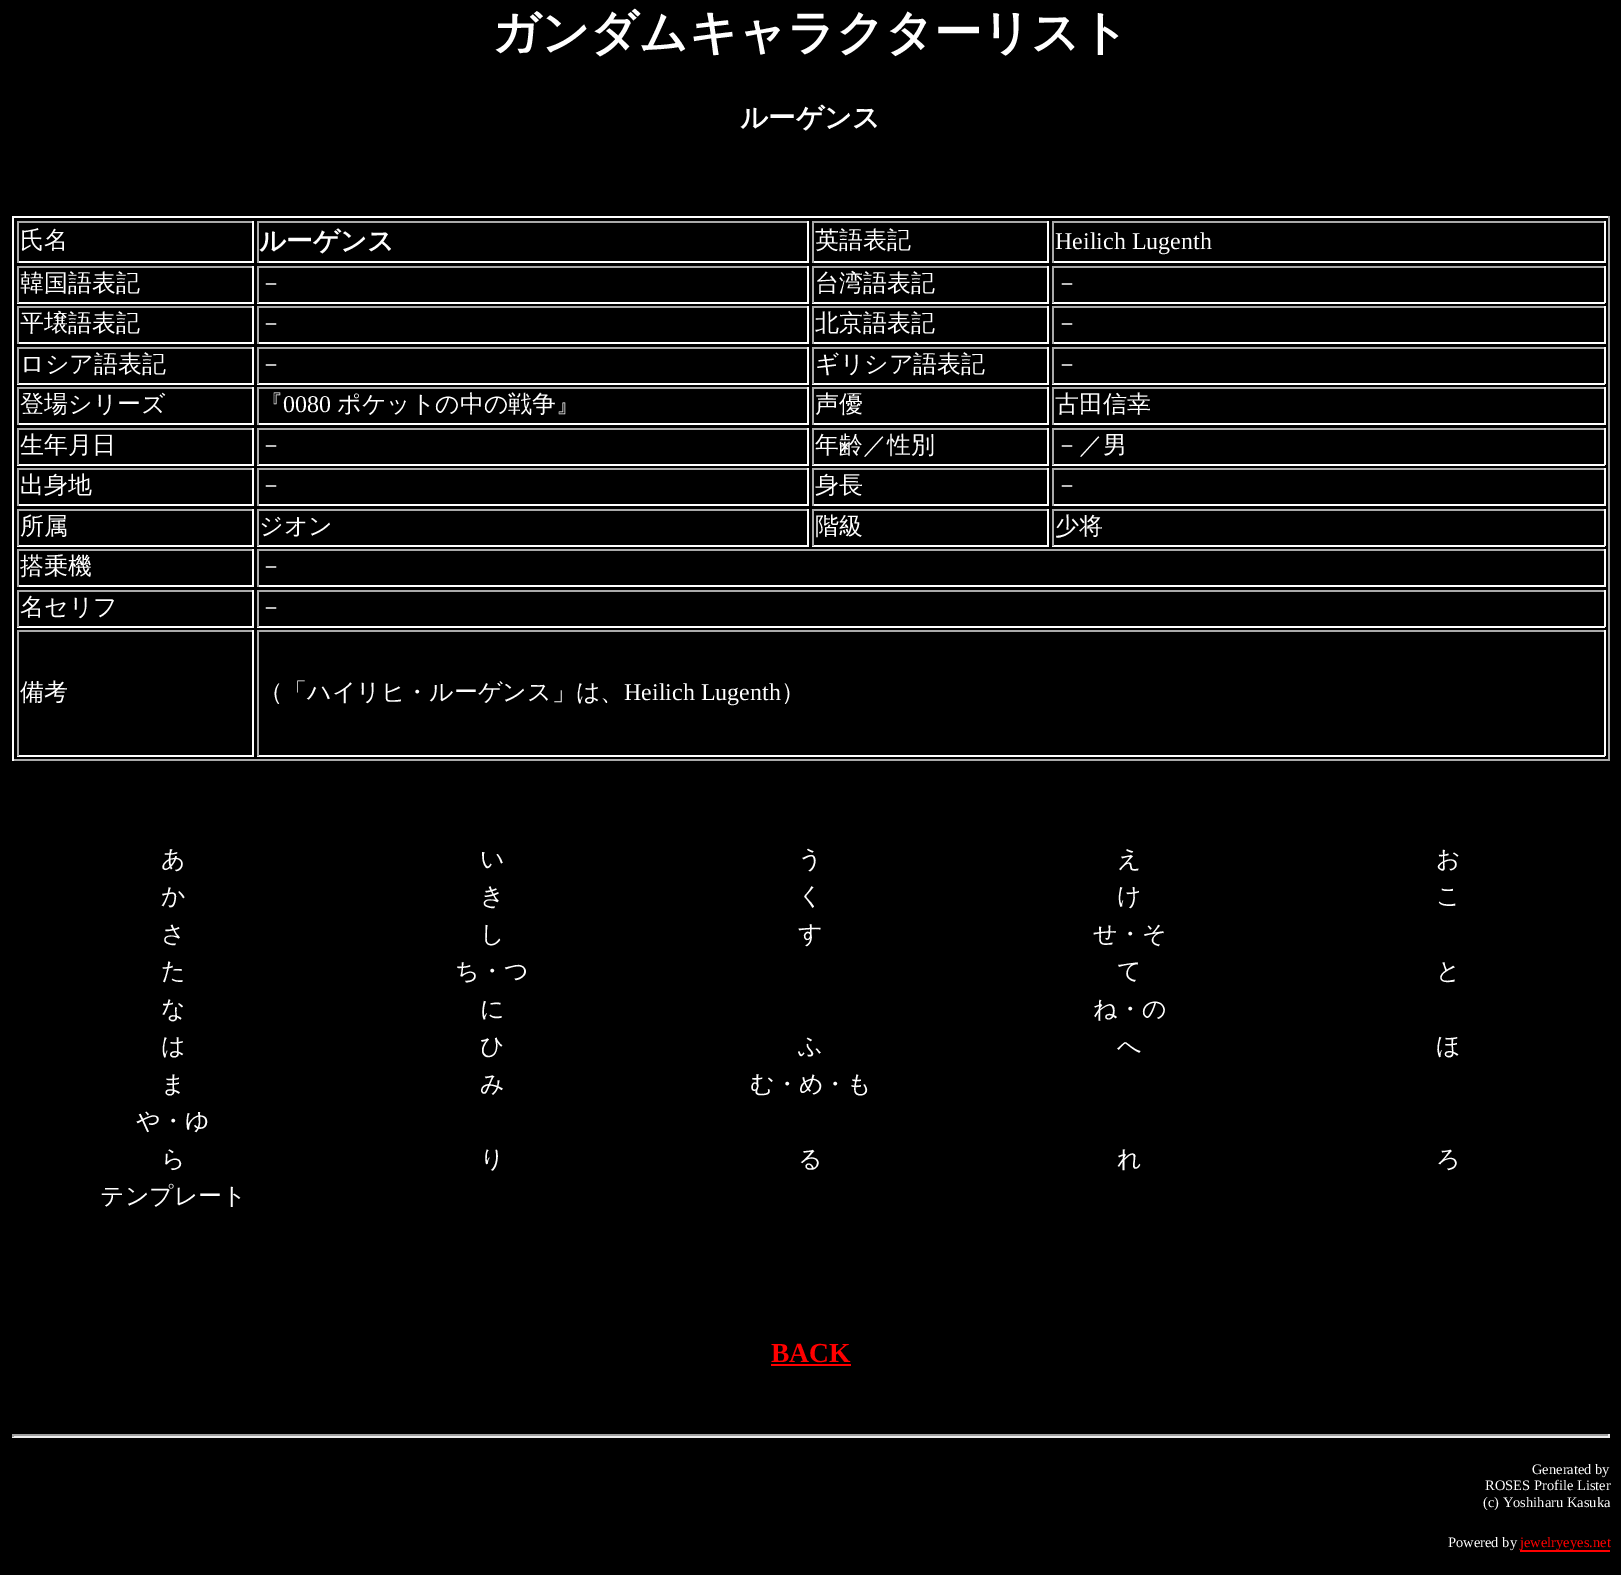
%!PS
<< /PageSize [1621 1575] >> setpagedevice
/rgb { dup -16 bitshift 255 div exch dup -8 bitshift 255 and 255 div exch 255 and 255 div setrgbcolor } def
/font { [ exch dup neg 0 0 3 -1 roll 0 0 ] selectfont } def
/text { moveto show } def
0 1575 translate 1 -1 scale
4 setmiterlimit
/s1 { /WenQuanYiZenHei-Bold 48 font 16#FFFFFF rgb } def
/s2 { /WenQuanYiZenHei-Bold 27.5 font 16#FFFFFF rgb } def
/s3 { /WenQuanYiZenHei-Medium 24 font 16#FFFFFF rgb } def
/s4 { /WenQuanYiZenHei-Bold 26.5 font 16#FFFFFF rgb } def
/s5 { /LiberationSerif-Regular 24 font 16#FFFFFF rgb } def
/s6 { /LiberationSerif-Bold 27.5 font 16#FF0000 rgb } def
/s7 { /LiberationSerif-Regular 14.5 font 16#FFFFFF rgb } def
/s8 { /LiberationSerif-Regular 14.5 font 16#FF0000 rgb } def
16#000000 rgb
0 0 1621 1575 rectfill
s1
(ガンダムキャラクターリスト) 492 49 text
s2
(ルーゲンス) 740 127 text
12 216 1598 2 rectfill
16#AAAAAA rgb
1608 216 2 545 rectfill
12 759 1598 2 rectfill
16#FFFFFF rgb
12 216 2 545 rectfill
16#AAAAAA rgb
17 221 237 2 rectfill
16#FFFFFF rgb
252 221 2 42 rectfill
17 261 237 2 rectfill
16#AAAAAA rgb
17 221 2 42 rectfill
s3
(氏名) 20 248 text
16#AAAAAA rgb
257 221 552 2 rectfill
16#FFFFFF rgb
807 221 2 42 rectfill
257 261 552 2 rectfill
16#AAAAAA rgb
257 221 2 42 rectfill
s4
(ルーゲンス) 259 250 text
16#AAAAAA rgb
812 221 237 2 rectfill
16#FFFFFF rgb
1047 221 2 42 rectfill
812 261 237 2 rectfill
16#AAAAAA rgb
812 221 2 42 rectfill
s3
(英語表記) 815 248 text
16#AAAAAA rgb
1052 221 553 2 rectfill
16#FFFFFF rgb
1604 221 2 42 rectfill
1052 261 553 2 rectfill
16#AAAAAA rgb
1052 221 2 42 rectfill
s5
(Heilich Lugenth) 1055 249 text
16#AAAAAA rgb
17 266 237 2 rectfill
16#FFFFFF rgb
252 266 2 37 rectfill
17 302 237 2 rectfill
16#AAAAAA rgb
17 266 2 37 rectfill
s3
(韓国語表記) 20 291 text
16#AAAAAA rgb
257 266 552 2 rectfill
16#FFFFFF rgb
807 266 2 37 rectfill
257 302 552 2 rectfill
16#AAAAAA rgb
257 266 2 37 rectfill
s3
(－) 259 291 text
16#AAAAAA rgb
812 266 237 2 rectfill
16#FFFFFF rgb
1047 266 2 37 rectfill
812 302 237 2 rectfill
16#AAAAAA rgb
812 266 2 37 rectfill
s3
(台湾語表記) 815 291 text
16#AAAAAA rgb
1052 266 553 2 rectfill
16#FFFFFF rgb
1604 266 2 37 rectfill
1052 302 553 2 rectfill
16#AAAAAA rgb
1052 266 2 37 rectfill
s3
(－) 1055 291 text
16#AAAAAA rgb
17 306 237 2 rectfill
16#FFFFFF rgb
252 306 2 38 rectfill
17 342 237 2 rectfill
16#AAAAAA rgb
17 306 2 38 rectfill
s3
(平壌語表記) 20 331 text
16#AAAAAA rgb
257 306 552 2 rectfill
16#FFFFFF rgb
807 306 2 38 rectfill
257 342 552 2 rectfill
16#AAAAAA rgb
257 306 2 38 rectfill
s3
(－) 259 331 text
16#AAAAAA rgb
812 306 237 2 rectfill
16#FFFFFF rgb
1047 306 2 38 rectfill
812 342 237 2 rectfill
16#AAAAAA rgb
812 306 2 38 rectfill
s3
(北京語表記) 815 331 text
16#AAAAAA rgb
1052 306 553 2 rectfill
16#FFFFFF rgb
1604 306 2 38 rectfill
1052 342 553 2 rectfill
16#AAAAAA rgb
1052 306 2 38 rectfill
s3
(－) 1055 331 text
16#AAAAAA rgb
17 347 237 2 rectfill
16#FFFFFF rgb
252 347 2 37 rectfill
17 383 237 2 rectfill
16#AAAAAA rgb
17 347 2 37 rectfill
s3
(ロシア語表記) 20 372 text
16#AAAAAA rgb
257 347 552 2 rectfill
16#FFFFFF rgb
807 347 2 37 rectfill
257 383 552 2 rectfill
16#AAAAAA rgb
257 347 2 37 rectfill
s3
(－) 259 372 text
16#AAAAAA rgb
812 347 237 2 rectfill
16#FFFFFF rgb
1047 347 2 37 rectfill
812 383 237 2 rectfill
16#AAAAAA rgb
812 347 2 37 rectfill
s3
(ギリシア語表記) 815 372 text
16#AAAAAA rgb
1052 347 553 2 rectfill
16#FFFFFF rgb
1604 347 2 37 rectfill
1052 383 553 2 rectfill
16#AAAAAA rgb
1052 347 2 37 rectfill
s3
(－) 1055 372 text
16#AAAAAA rgb
17 387 237 2 rectfill
16#FFFFFF rgb
252 387 2 38 rectfill
17 423 237 2 rectfill
16#AAAAAA rgb
17 387 2 38 rectfill
s3
(登場シリーズ) 20 412 text
16#AAAAAA rgb
257 387 552 2 rectfill
16#FFFFFF rgb
807 387 2 38 rectfill
257 423 552 2 rectfill
16#AAAAAA rgb
257 387 2 38 rectfill
s3
(『) 259 412 text
s5
(0080) 283 412 text
s3
(ポケットの中の戦争』) 337 412 text
16#AAAAAA rgb
812 387 237 2 rectfill
16#FFFFFF rgb
1047 387 2 38 rectfill
812 423 237 2 rectfill
16#AAAAAA rgb
812 387 2 38 rectfill
s3
(声優) 815 412 text
16#AAAAAA rgb
1052 387 553 2 rectfill
16#FFFFFF rgb
1604 387 2 38 rectfill
1052 423 553 2 rectfill
16#AAAAAA rgb
1052 387 2 38 rectfill
s3
(古田信幸) 1055 412 text
16#AAAAAA rgb
17 428 237 2 rectfill
16#FFFFFF rgb
252 428 2 37 rectfill
17 464 237 2 rectfill
16#AAAAAA rgb
17 428 2 37 rectfill
s3
(生年月日) 20 453 text
16#AAAAAA rgb
257 428 552 2 rectfill
16#FFFFFF rgb
807 428 2 37 rectfill
257 464 552 2 rectfill
16#AAAAAA rgb
257 428 2 37 rectfill
s3
(－) 259 453 text
16#AAAAAA rgb
812 428 237 2 rectfill
16#FFFFFF rgb
1047 428 2 37 rectfill
812 464 237 2 rectfill
16#AAAAAA rgb
812 428 2 37 rectfill
s3
(年齢／性別) 815 453 text
16#AAAAAA rgb
1052 428 553 2 rectfill
16#FFFFFF rgb
1604 428 2 37 rectfill
1052 464 553 2 rectfill
16#AAAAAA rgb
1052 428 2 37 rectfill
s3
(－／男) 1055 453 text
16#AAAAAA rgb
17 468 237 2 rectfill
16#FFFFFF rgb
252 468 2 38 rectfill
17 504 237 2 rectfill
16#AAAAAA rgb
17 468 2 38 rectfill
s3
(出身地) 20 493 text
16#AAAAAA rgb
257 468 552 2 rectfill
16#FFFFFF rgb
807 468 2 38 rectfill
257 504 552 2 rectfill
16#AAAAAA rgb
257 468 2 38 rectfill
s3
(－) 259 493 text
16#AAAAAA rgb
812 468 237 2 rectfill
16#FFFFFF rgb
1047 468 2 38 rectfill
812 504 237 2 rectfill
16#AAAAAA rgb
812 468 2 38 rectfill
s3
(身長) 815 493 text
16#AAAAAA rgb
1052 468 553 2 rectfill
16#FFFFFF rgb
1604 468 2 38 rectfill
1052 504 553 2 rectfill
16#AAAAAA rgb
1052 468 2 38 rectfill
s3
(－) 1055 493 text
16#AAAAAA rgb
17 509 237 2 rectfill
16#FFFFFF rgb
252 509 2 37 rectfill
17 545 237 2 rectfill
16#AAAAAA rgb
17 509 2 37 rectfill
s3
(所属) 20 534 text
16#AAAAAA rgb
257 509 552 2 rectfill
16#FFFFFF rgb
807 509 2 37 rectfill
257 545 552 2 rectfill
16#AAAAAA rgb
257 509 2 37 rectfill
s3
(ジオン) 259 534 text
16#AAAAAA rgb
812 509 237 2 rectfill
16#FFFFFF rgb
1047 509 2 37 rectfill
812 545 237 2 rectfill
16#AAAAAA rgb
812 509 2 37 rectfill
s3
(階級) 815 534 text
16#AAAAAA rgb
1052 509 553 2 rectfill
16#FFFFFF rgb
1604 509 2 37 rectfill
1052 545 553 2 rectfill
16#AAAAAA rgb
1052 509 2 37 rectfill
s3
(少将) 1055 534 text
16#AAAAAA rgb
17 549 237 2 rectfill
16#FFFFFF rgb
252 549 2 38 rectfill
17 585 237 2 rectfill
16#AAAAAA rgb
17 549 2 38 rectfill
s3
(搭乗機) 20 574 text
16#AAAAAA rgb
257 549 1348 2 rectfill
16#FFFFFF rgb
1604 549 2 38 rectfill
257 585 1348 2 rectfill
16#AAAAAA rgb
257 549 2 38 rectfill
s3
(－) 259 574 text
16#AAAAAA rgb
17 590 237 2 rectfill
16#FFFFFF rgb
252 590 2 37 rectfill
17 626 237 2 rectfill
16#AAAAAA rgb
17 590 2 37 rectfill
s3
(名セリフ) 20 615 text
16#AAAAAA rgb
257 590 1348 2 rectfill
16#FFFFFF rgb
1604 590 2 37 rectfill
257 626 1348 2 rectfill
16#AAAAAA rgb
257 590 2 37 rectfill
s3
(－) 259 615 text
16#AAAAAA rgb
17 630 237 2 rectfill
16#FFFFFF rgb
252 630 2 126 rectfill
17 755 237 2 rectfill
16#AAAAAA rgb
17 630 2 126 rectfill
s3
(備考) 20 700 text
16#AAAAAA rgb
257 630 1348 2 rectfill
16#FFFFFF rgb
1604 630 2 126 rectfill
257 755 1348 2 rectfill
16#AAAAAA rgb
257 630 2 126 rectfill
s3
(（「ハイリヒ・ルーゲンス」は、) 259 700 text
s5
(Heilich Lugenth) 624 700 text
s3
(）) 781 700 text
(あ) 161 867 text
(い) 480 867 text
(う) 798 867 text
(え) 1117 867 text
(お) 1436 867 text
(か) 161 904 text
(き) 480 904 text
(く) 798 904 text
(け) 1117 904 text
(こ) 1436 904 text
(さ) 161 942 text
(し) 480 942 text
(す) 798 942 text
(せ・そ) 1093 942 text
(た) 161 979 text
(ち・つ) 455 979 text
(て) 1117 979 text
(と) 1436 979 text
(な) 161 1017 text
(に) 480 1017 text
(ね・の) 1093 1017 text
(は) 161 1054 text
(ひ) 480 1054 text
(ふ) 798 1054 text
(へ) 1117 1054 text
(ほ) 1436 1054 text
(ま) 161 1092 text
(み) 480 1092 text
(む・め・も) 750 1092 text
(や・ゆ) 136 1129 text
(ら) 161 1167 text
(り) 480 1167 text
(る) 798 1167 text
(れ) 1117 1167 text
(ろ) 1436 1167 text
(テンプレート) 100 1204 text
s6
(BACK) 771 1362 text
771 1364 80 2 rectfill
16#9F9F9F rgb
12 1434 1598 2 rectfill
16#EEEEEE rgb
1608 1434 2 3 rectfill
12 1436 1598 2 rectfill
16#9F9F9F rgb
12 1434 2 3 rectfill
s7
(Generated by) 1532 1474 text
(ROSES Profile Lister) 1485 1490 text
(\(c\) Yoshiharu Kasuka) 1483 1507 text
(Powered by) 1448 1547 text
16#FF0000 rgb
1520 1550 90 2 rectfill
(jewelryeyes.net) 1520 1547 text
showpage
